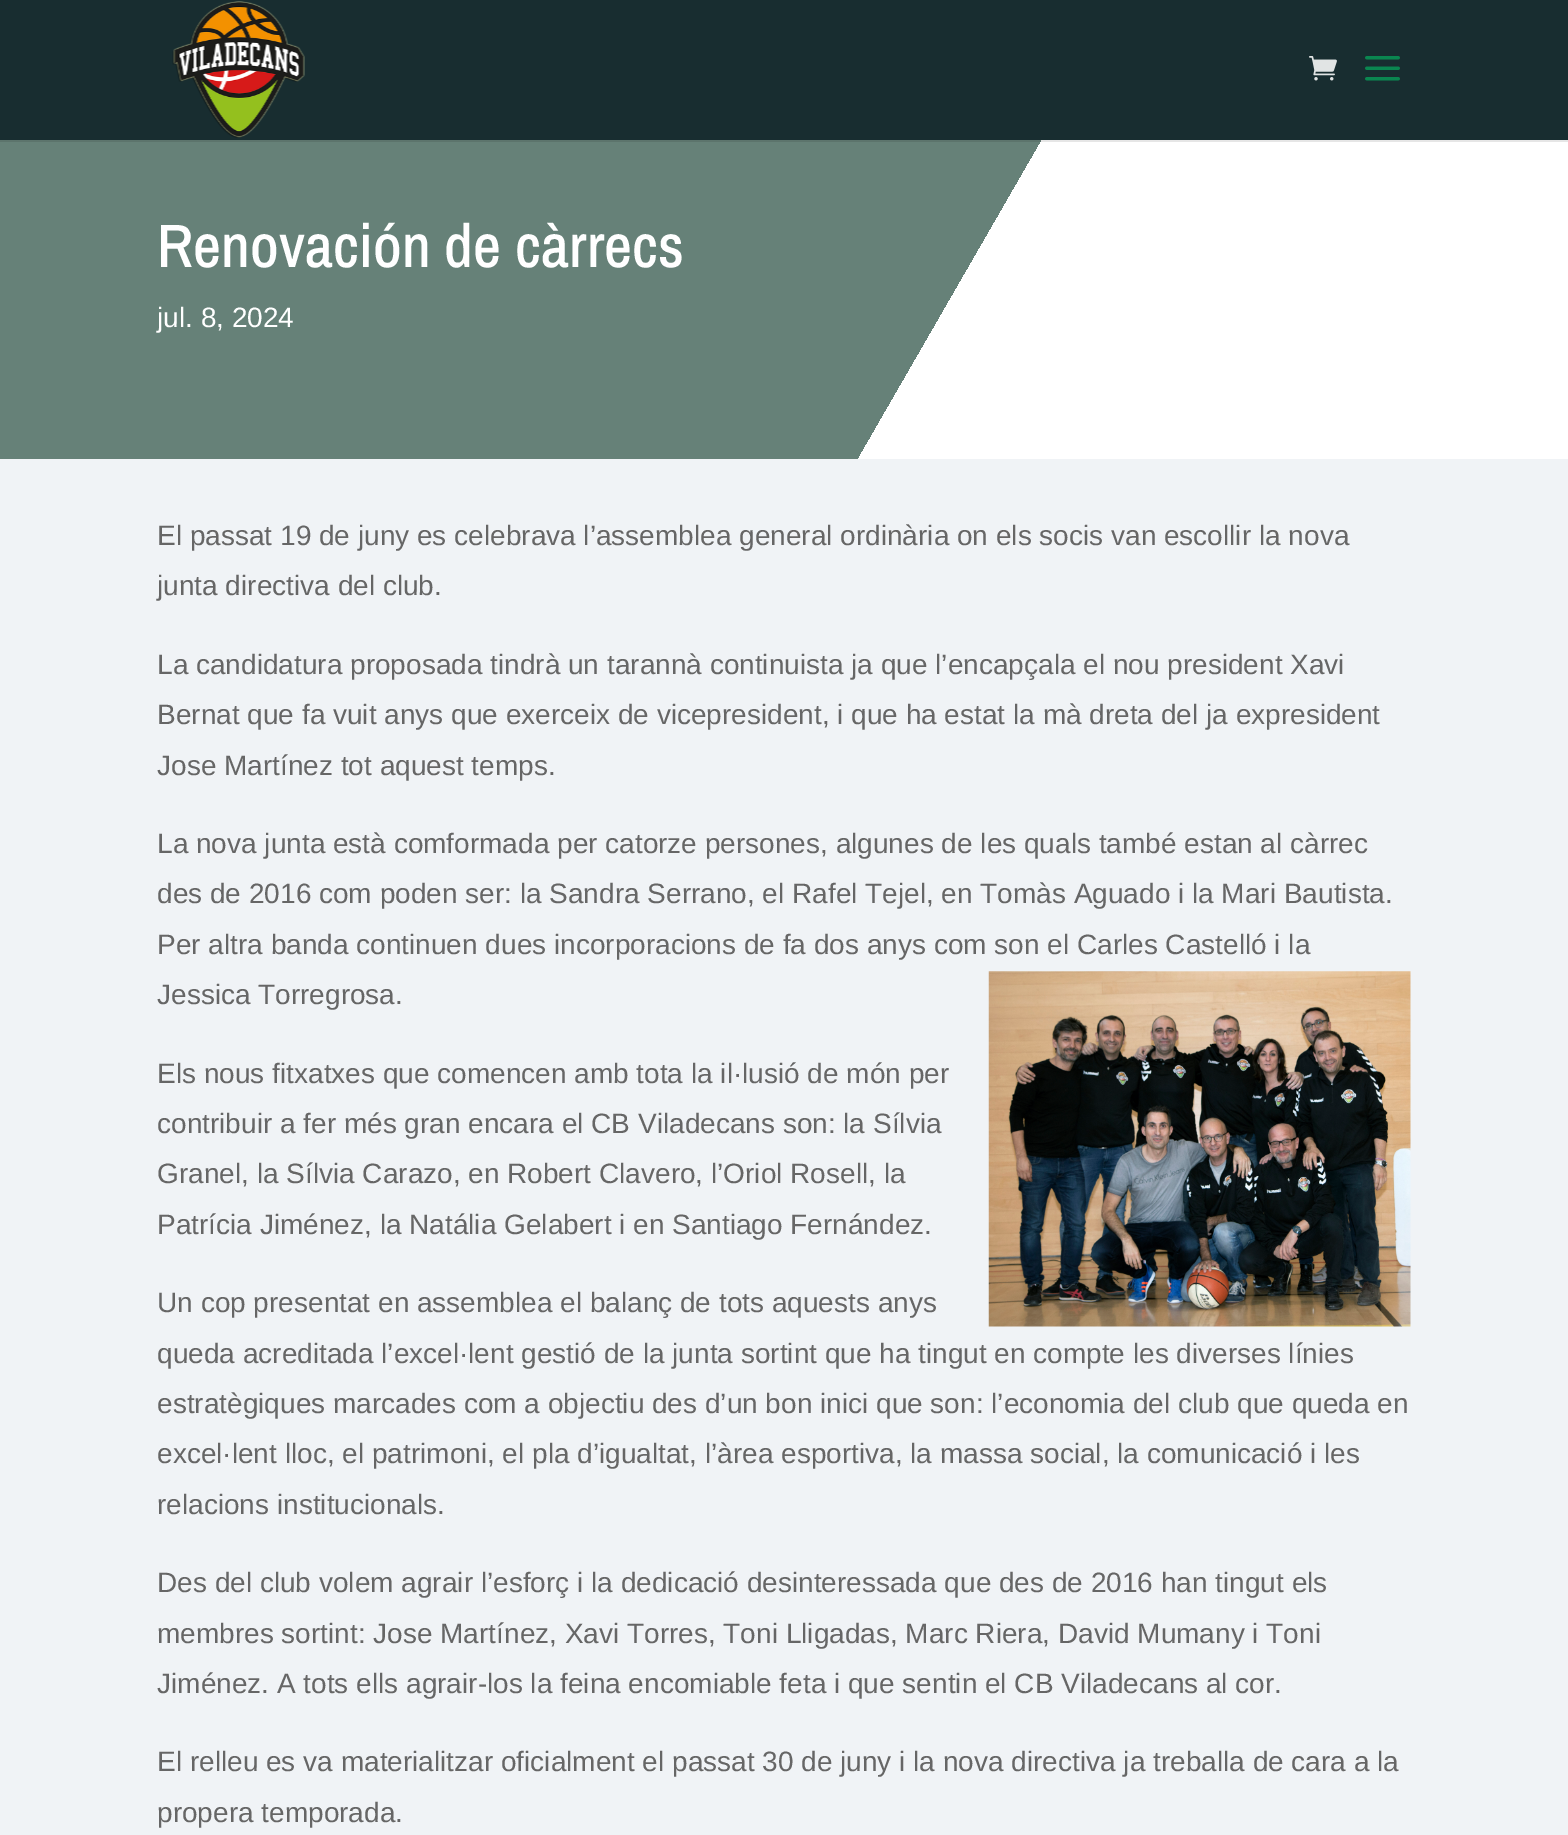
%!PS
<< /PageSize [1568 1835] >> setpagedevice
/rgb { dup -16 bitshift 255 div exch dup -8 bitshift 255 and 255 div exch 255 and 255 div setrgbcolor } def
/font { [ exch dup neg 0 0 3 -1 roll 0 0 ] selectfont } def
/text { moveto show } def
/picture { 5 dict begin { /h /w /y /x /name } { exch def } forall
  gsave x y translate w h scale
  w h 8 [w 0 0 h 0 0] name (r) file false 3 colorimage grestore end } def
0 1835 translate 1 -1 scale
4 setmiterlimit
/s1 { /ArchivoNarrow-Medium 61.25 font 16#FFFFFF rgb } def
/s2 { /LiberationSans-Regular 28 font 16#FFFFFF rgb } def
/s3 { /LiberationSans-Regular 28 font 16#666666 rgb } def
16#FFFFFF rgb
0 0 1568 1835 rectfill
16#182D30 rgb
0 0 1568 140 rectfill
(pic1.raw) 172 1 133 137 picture
(pic2.raw) 1309 56 28 25 picture
(pic3.raw) 1365 56 35 25 picture
gsave 0 142 moveto 1040 142 lineto 1040 459 lineto 0 459 lineto closepath clip newpath
<< /ShadingType 2 /ColorSpace /DeviceRGB /Coords [118 -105 1450 663] /Extend [true true] /Function << /FunctionType 3 /Domain [0 1] /Functions [<< /FunctionType 2 /Domain [0 1] /C0 [0.4 0.506 0.471] /C1 [0.4 0.506 0.471] /N 1 >> << /FunctionType 2 /Domain [0 1] /C0 [1 1 1] /C1 [1 1 1] /N 1 >>] /Bounds [0.6] /Encode [0 1 0 1] >> >> shfill grestore
gsave 0 140 moveto 1568 140 lineto 1568 142 lineto 0 142 lineto closepath clip newpath
<< /ShadingType 2 /ColorSpace /DeviceRGB /Coords [118 -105 1450 663] /Extend [true true] /Function << /FunctionType 3 /Domain [0 1] /Functions [<< /FunctionType 2 /Domain [0 1] /C0 [0.361 0.455 0.424] /C1 [0.361 0.455 0.424] /N 1 >> << /FunctionType 2 /Domain [0 1] /C0 [0.902 0.902 0.902] /C1 [0.902 0.902 0.902] /N 1 >>] /Bounds [0.6] /Encode [0 1 0 1] >> >> shfill grestore
s1
(Renovación de càrrecs) 157 267 text
s2
(jul. 8, 2024) 157 327 text
16#F0F3F6 rgb
0 459 1568 1376 rectfill
s3
(El passat 19 de juny es celebrava l’assemblea general ordinària on els socis van escollir la nova) 157 545 text
(junta directiva del club.) 157 595 text
(La candidatura proposada tindrà un tarannà continuista ja que l’encapçala el nou president Xavi) 157 674 text
(Bernat que fa vuit anys que exerceix de vicepresident, i que ha estat la mà dreta del ja expresident) 157 724 text
(Jose Martínez tot aquest temps.) 157 775 text
(La nova junta està comformada per catorze persones, algunes de les quals també estan al càrrec) 157 853 text
(des de 2016 com poden ser: la Sandra Serrano, el Rafel Tejel, en Tomàs Aguado i la Mari Bautista.) 157 903 text
(Per altra banda continuen dues incorporacions de fa dos anys com son el Carles Castelló i la) 157 954 text
(Jessica Torregrosa.) 157 1004 text
(pic4.raw) 988 971 423 356 picture
(Els nous fitxatxes que comencen amb tota la il·lusió de món per) 157 1083 text
(contribuir a fer més gran encara el CB Viladecans son: la Sílvia) 157 1133 text
(Granel, la Sílvia Carazo, en Robert Clavero, l’Oriol Rosell, la) 157 1183 text
(Patrícia Jiménez, la Natália Gelabert i en Santiago Fernández.) 157 1234 text
(Un cop presentat en assemblea el balanç de tots aquests anys) 157 1312 text
(queda acreditada l’excel·lent gestió de la junta sortint que ha tingut en compte les diverses línies) 157 1363 text
(estratègiques marcades com a objectiu des d’un bon inici que son: l’economia del club que queda en) 157 1413 text
(excel·lent lloc, el patrimoni, el pla d’igualtat, l’àrea esportiva, la massa social, la comunicació i les) 157 1463 text
(relacions institucionals.) 157 1514 text
(Des del club volem agrair l’esforç i la dedicació desinteressada que des de 2016 han tingut els) 157 1592 text
(membres sortint: Jose Martínez, Xavi Torres, Toni Lligadas, Marc Riera, David Mumany i Toni) 157 1643 text
(Jiménez. A tots ells agrair-los la feina encomiable feta i que sentin el CB Viladecans al cor.) 157 1693 text
(El relleu es va materialitzar oficialment el passat 30 de juny i la nova directiva ja treballa de cara a la) 157 1771 text
(propera temporada.) 157 1822 text
showpage
